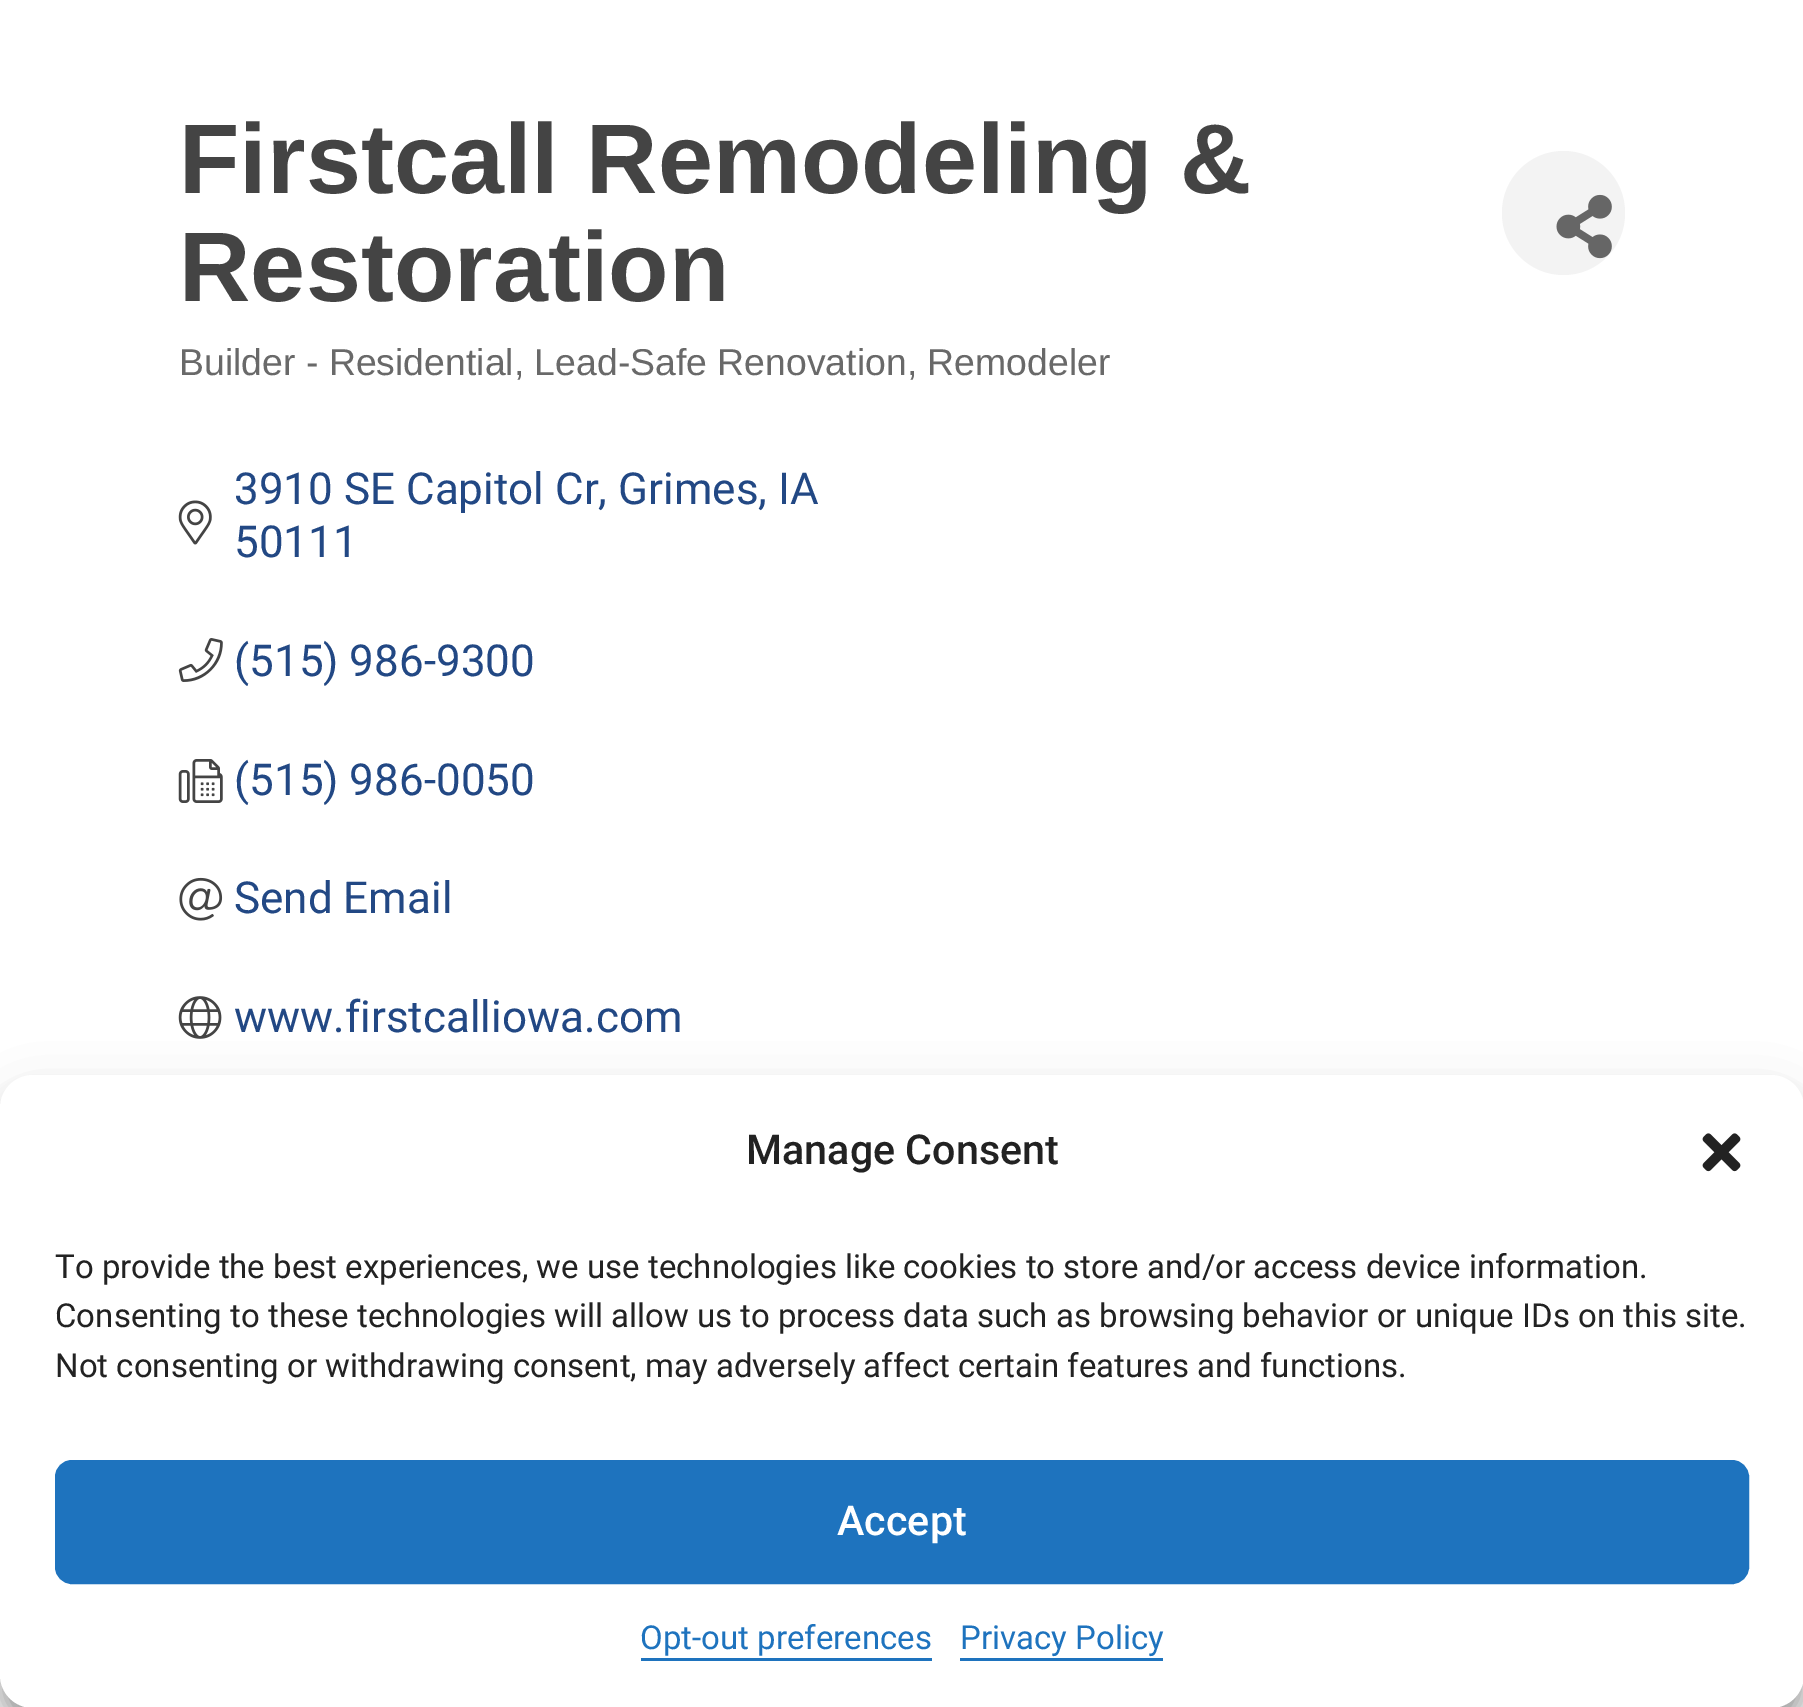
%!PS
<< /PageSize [1803 1707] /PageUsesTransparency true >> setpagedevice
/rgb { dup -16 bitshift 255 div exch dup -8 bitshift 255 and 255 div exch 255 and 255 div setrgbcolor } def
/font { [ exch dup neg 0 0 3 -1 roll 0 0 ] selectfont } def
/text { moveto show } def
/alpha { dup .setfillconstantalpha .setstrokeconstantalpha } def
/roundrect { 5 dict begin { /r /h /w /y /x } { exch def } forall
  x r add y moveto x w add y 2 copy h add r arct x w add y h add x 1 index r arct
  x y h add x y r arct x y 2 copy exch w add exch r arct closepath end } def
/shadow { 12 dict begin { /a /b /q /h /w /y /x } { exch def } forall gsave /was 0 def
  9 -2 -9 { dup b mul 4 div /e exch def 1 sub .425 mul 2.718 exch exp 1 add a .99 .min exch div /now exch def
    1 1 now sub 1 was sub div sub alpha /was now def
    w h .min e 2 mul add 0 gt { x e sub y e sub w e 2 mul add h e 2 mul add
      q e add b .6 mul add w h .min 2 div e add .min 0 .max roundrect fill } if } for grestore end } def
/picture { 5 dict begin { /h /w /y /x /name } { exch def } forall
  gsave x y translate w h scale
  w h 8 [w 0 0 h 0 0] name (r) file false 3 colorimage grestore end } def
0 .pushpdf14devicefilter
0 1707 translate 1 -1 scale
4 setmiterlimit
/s1 { /LiberationSans-Bold 99 font 16#444444 rgb } def
/s2 { /LiberationSans-Regular 37.4 font 16#696969 rgb } def
/s3 { /Roboto-Regular 44 font 16#224884 rgb } def
/s4 { /Roboto-Medium 41.25 font 16#222222 rgb } def
/s5 { /Roboto-Regular 33 font 16#222222 rgb } def
/s6 { /Roboto-Medium 41.25 font 16#FFFFFF rgb } def
/s7 { /Roboto-Regular 33 font 16#1E73BE rgb } def
16#FFFFFF rgb
0 0 1803 1707 rectfill
s1
(Firstcall Remodeling &) 179 193 text
(Restoration) 179 301 text
16#F3F3F3 rgb
1502 151 123 124 61.5 roundrect fill
(pic1.raw) 1556 194 56 65 picture
s2
(Builder - Residential, Lead-Safe Renovation, Remodeler) 179 375 text
s3
(3910 SE Capitol Cr, Grimes, IA) 234 504 text
(pic2.raw) 178 500 34 45 picture
(50111) 234 557 text
(pic3.raw) 178 638 45 44 picture
(\(515\) 986-9300) 234 676 text
(pic4.raw) 178 759 45 44 picture
(\(515\) 986-0050) 234 795 text
(pic5.raw) 179 877 44 44 picture
(Send Email) 234 913 text
(pic6.raw) 178 996 44 43 picture
(www.firstcalliowa.com) 234 1032 text
16#000000 rgb
0 1092 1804 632 33 8 0.23 shadow
0 1103 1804 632 33 27.5 0.19 shadow
16#FFFFFF rgb
0 1075 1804 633 33 roundrect fill
s4
(Manage Consent) 746 1164 text
(pic7.raw) 1702 1133 39 39 picture
s5
(To provide the best experiences, we use technologies like cookies to store and/or access device information.) 55 1278 text
(Consenting to these technologies will allow us to process data such as browsing behavior or unique IDs on this site.) 55 1327 text
(Not consenting or withdrawing consent, may adversely affect certain features and functions.) 55 1377 text
16#1E73BE rgb
56.5 1461.5 1691 121 15.5 roundrect gsave fill grestore
3 setlinewidth
stroke
s6
(Accept) 837 1535 text
s7
(Opt-out preferences) 640 1649 text
641 1658 291 3 rectfill
(Privacy Policy) 960 1649 text
960 1658 203 3 rectfill
.poppdf14devicefilter showpage
